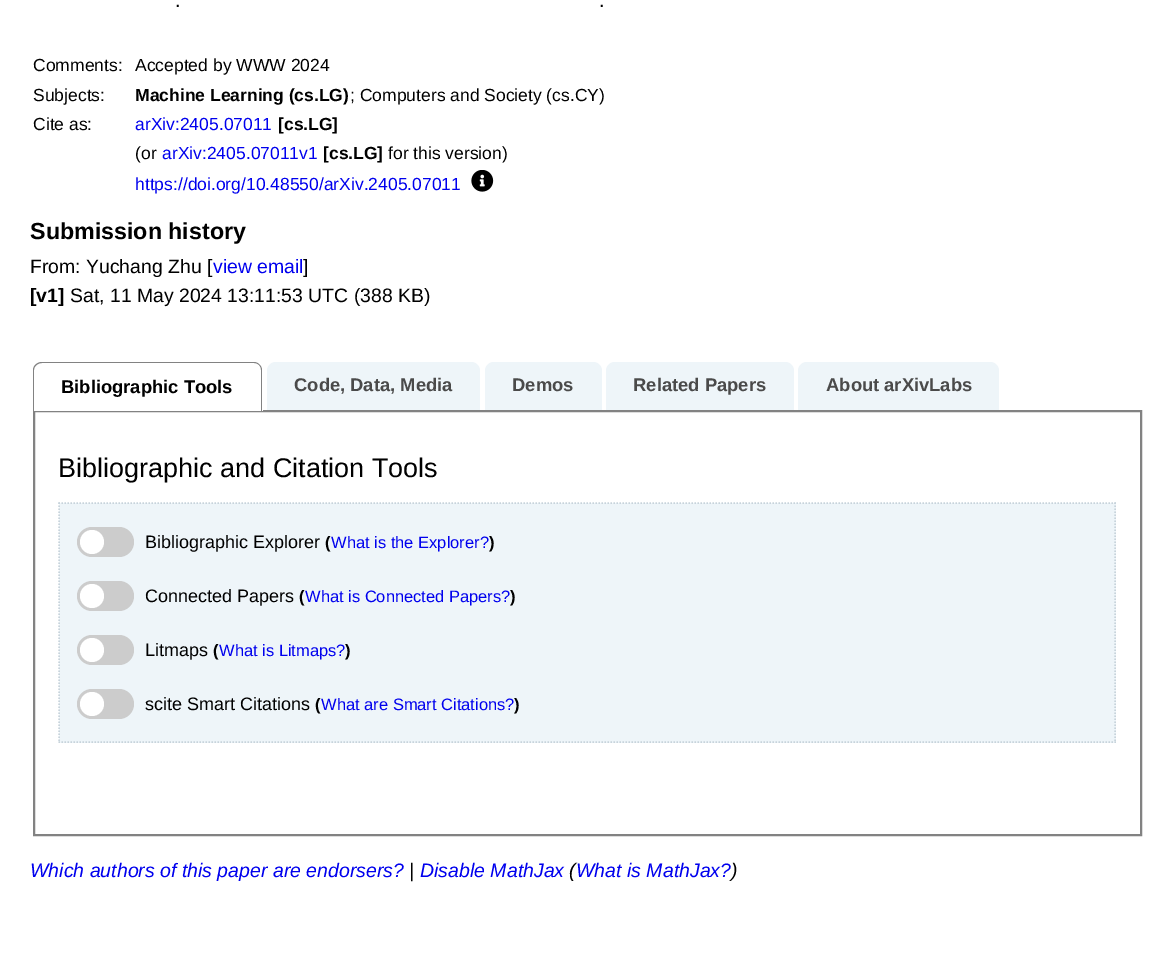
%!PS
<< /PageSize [1174 965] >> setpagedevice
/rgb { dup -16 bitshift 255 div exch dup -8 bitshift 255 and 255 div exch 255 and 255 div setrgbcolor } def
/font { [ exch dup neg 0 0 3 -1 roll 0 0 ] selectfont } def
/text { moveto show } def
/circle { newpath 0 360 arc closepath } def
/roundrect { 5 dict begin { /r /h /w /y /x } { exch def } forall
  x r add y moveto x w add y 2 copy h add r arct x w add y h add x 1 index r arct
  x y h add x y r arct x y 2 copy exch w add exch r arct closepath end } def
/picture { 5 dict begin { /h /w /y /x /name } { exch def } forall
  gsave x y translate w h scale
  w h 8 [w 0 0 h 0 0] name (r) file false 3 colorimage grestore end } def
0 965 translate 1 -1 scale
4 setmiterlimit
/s1 { /LiberationSans-Regular 20 font 16#000000 rgb } def
/s2 { /LiberationSans-Regular 17.5 font 16#000000 rgb } def
/s3 { /LiberationSans-Bold 17.5 font 16#000000 rgb } def
/s4 { /LiberationSans-Regular 17.5 font 16#0000EE rgb } def
/s5 { /LiberationSans-Bold 23.25 font 16#000000 rgb } def
/s6 { /LiberationSans-Regular 19.4 font 16#000000 rgb } def
/s7 { /LiberationSans-Regular 19.4 font 16#0000EE rgb } def
/s8 { /LiberationSans-Bold 19.4 font 16#000000 rgb } def
/s9 { /LiberationSans-Bold 18.4 font 16#000000 rgb } def
/s10 { /LiberationSans-Bold 18.4 font 16#4A4A4A rgb } def
/s11 { /LiberationSans-Regular 27 font 16#000000 rgb } def
/s12 { /LiberationSans-Regular 18 font 16#000000 rgb } def
/s13 { /LiberationSans-Bold 16.5 font 16#000000 rgb } def
/s14 { /LiberationSans-Regular 16.5 font 16#0000EE rgb } def
/s15 { /LiberationSans-Italic 19.5 font 16#0000EE rgb } def
/s16 { /LiberationSans-Italic 19.5 font 16#000000 rgb } def
16#FFFFFF rgb
0 0 1174 965 rectfill
s1
(.) 175 7 text
(.) 599 7 text
s2
(Comments:) 33 71 text
(Accepted by WWW 2024) 135 71 text
(Subjects:) 33 101 text
s3
(Machine Learning \(cs.LG\)) 135 101 text
s2
(; Computers and Society \(cs.CY\)) 350 101 text
(Cite as:) 33 130 text
s4
(arXiv:2405.07011) 135 130 text
s3
([cs.LG]) 278 130 text
s2
(\(or) 135 159 text
s4
(arXiv:2405.07011v1) 162 159 text
s3
([cs.LG]) 323 159 text
s2
(for this version\)) 388 159 text
s4
(https://doi.org/10.48550/arXiv.2405.07011) 135 190 text
(pic1.raw) 471 170 23 22 picture
s5
(Submission history) 30 239 text
s6
(From: Yuchang Zhu [) 30 273 text
s7
(view email) 213 273 text
s6
(]) 303 273 text
s8
([v1]) 30 302 text
s6
(Sat, 11 May 2024 13:11:53 UTC \(388 KB\)) 70 302 text
16#EEF5F9 rgb
276 362 moveto 471 362 lineto 476 362 480 366 480 371 curveto 480 411 lineto 267 411 lineto 267 371 lineto 267 366 271 362 276 362 curveto closepath fill
494 362 moveto 593 362 lineto 598 362 602 366 602 371 curveto 602 411 lineto 485 411 lineto 485 371 lineto 485 366 489 362 494 362 curveto closepath fill
615 362 moveto 785 362 lineto 790 362 794 366 794 371 curveto 794 411 lineto 606 411 lineto 606 371 lineto 606 366 610 362 615 362 curveto closepath fill
807 362 moveto 990 362 lineto 995 362 999 366 999 371 curveto 999 411 lineto 798 411 lineto 798 371 lineto 798 366 802 362 807 362 curveto closepath fill
16#828282 rgb
2 setlinewidth
34 411 1107 424 rectstroke
16#FFFFFF rgb
42 362 moveto 254 362 lineto 259 362 263 366 263 371 curveto 263 411 lineto 33 411 lineto 33 371 lineto 33 366 37 362 42 362 curveto closepath fill
16#828282 rgb
42 362 moveto 254 362 lineto 258 362 262 366 262 370 curveto 262 411 lineto 33 411 lineto 33 370 lineto 33 366 37 362 42 362 curveto closepath 42 363 moveto 254 363 lineto 258 363 261 366 261 370 curveto 261 411 lineto 34 411 lineto 34 370 lineto 34 366 38 363 42 363 curveto closepath eofill
s9
(Bibliographic Tools) 61 393 text
s10
(Code, Data, Media) 294 391 text
(Demos) 512 391 text
(Related Papers) 633 391 text
(About arXivLabs) 826 391 text
s11
(Bibliographic and Citation Tools) 58 477 text
16#EEF5F9 rgb
59 503 1057 240 rectfill
16#C7D3DB rgb
1.5 setlinewidth
[1.5 1.5] 0 setdash
58.5 503 moveto 1116 503 lineto stroke
1115 502.5 moveto 1115 742.5 lineto stroke
58.5 742 moveto 1116 742 lineto stroke
59 502.5 moveto 59 742.5 lineto stroke
16#CCCCCC rgb
77 527 57 30 15 roundrect fill
16#FFFFFF rgb
92 542 12 circle fill
s12
(Bibliographic Explorer) 145 548 text
s13
(\() 325 548 text
s14
(What is the Explorer?) 331 548 text
s13
(\)) 489 548 text
16#CCCCCC rgb
77 581 57 30 15 roundrect fill
16#FFFFFF rgb
92 596 12 circle fill
s12
(Connected Papers) 145 602 text
s13
(\() 299 602 text
s14
(What is Connected Papers?) 305 602 text
s13
(\)) 510 602 text
16#CCCCCC rgb
77 635 57 30 15 roundrect fill
16#FFFFFF rgb
92 650 12 circle fill
s12
(Litmaps) 145 656 text
s13
(\() 213 656 text
s14
(What is Litmaps?) 219 656 text
s13
(\)) 345 656 text
16#CCCCCC rgb
77 689 57 30 15 roundrect fill
16#FFFFFF rgb
92 704 12 circle fill
s12
(scite Smart Citations) 145 710 text
s13
(\() 315 710 text
s14
(What are Smart Citations?) 321 710 text
s13
(\)) 514 710 text
s15
(Which authors of this paper are endorsers?) 30 877 text
s16
(|) 409 877 text
s15
(Disable MathJax) 420 877 text
s16
(\() 569 877 text
s15
(What is MathJax?) 576 877 text
s16
(\)) 731 877 text
showpage
